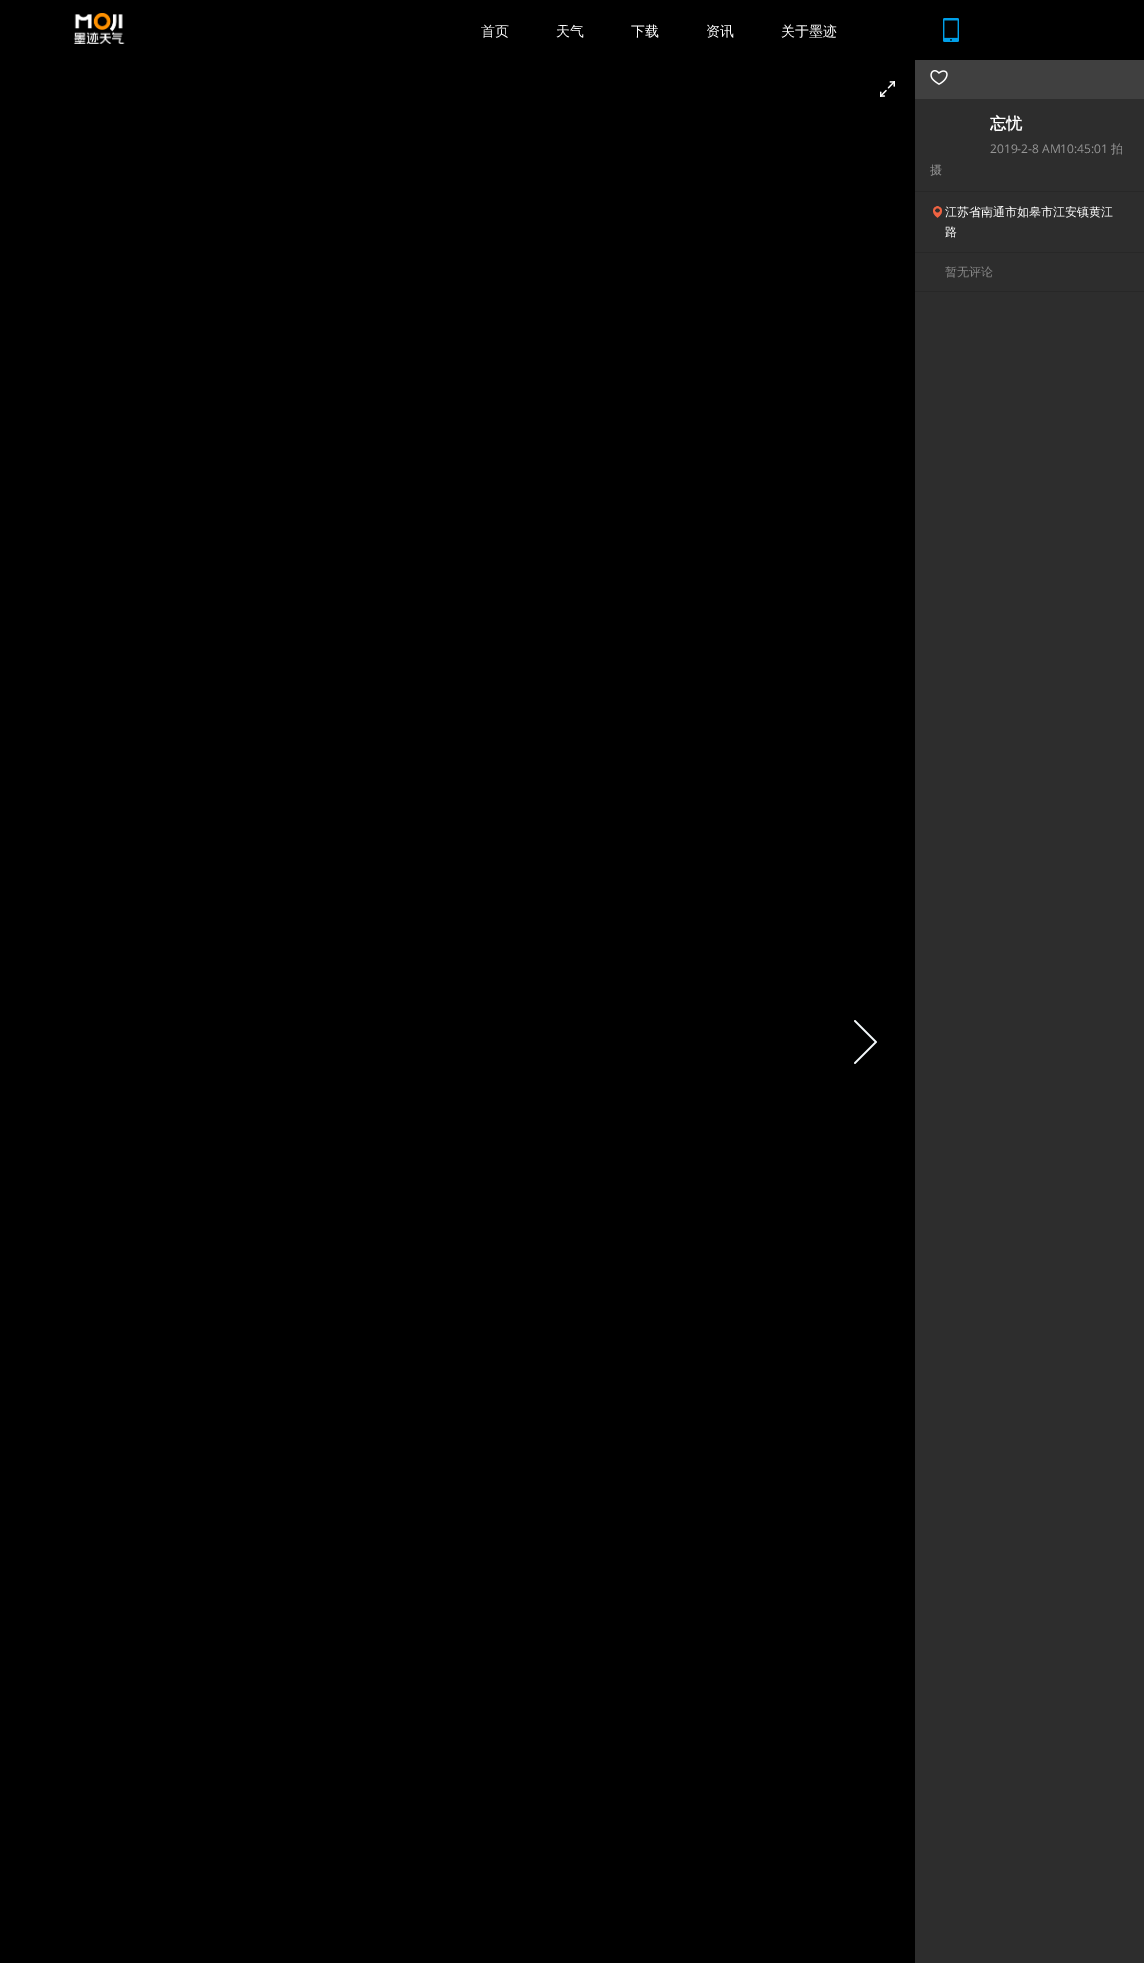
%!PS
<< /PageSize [1144 1963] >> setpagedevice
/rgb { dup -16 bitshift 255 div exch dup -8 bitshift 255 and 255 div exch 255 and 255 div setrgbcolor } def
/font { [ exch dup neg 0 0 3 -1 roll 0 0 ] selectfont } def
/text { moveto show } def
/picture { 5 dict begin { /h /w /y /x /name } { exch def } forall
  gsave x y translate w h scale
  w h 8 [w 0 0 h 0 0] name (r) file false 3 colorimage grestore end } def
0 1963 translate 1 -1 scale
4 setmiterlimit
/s1 { /WenQuanYiZenHei-Medium 14 font 16#FFFFFF rgb } def
/s2 { /WenQuanYiZenHei-Bold 16 font 16#FFFFFF rgb } def
/s3 { /OpenSans-Regular 12 font 16#979797 rgb } def
/s4 { /WenQuanYiZenHei-Medium 12 font 16#979797 rgb } def
/s5 { /WenQuanYiZenHei-Medium 12 font 16#FFFFFF rgb } def
/s6 { /WenQuanYiZenHei-Medium 12 font 16#868686 rgb } def
16#000000 rgb
0 0 1144 1963 rectfill
(pic1.raw) 73 13 52 31 picture
s1
(首页) 481 36 text
(天气) 556 36 text
(下载) 631 36 text
(资讯) 706 36 text
(关于墨迹) 781 36 text
(pic2.raw) 943 18 16 24 picture
(pic3.raw) 880 81 15 16 picture
(pic4.raw) 854 1020 23 44 picture
16#2D2D2D rgb
915 99 229 1864 rectfill
16#404040 rgb
915 60 229 39 rectfill
(pic5.raw) 930 70 18 15 picture
s2
(忘忧) 990 129 text
s3
(2019-2-8 AM10:45:01) 990 153 text
s4
(拍) 1111 153 text
(摄) 930 174 text
16#272727 rgb
915 191 229 1 rectfill
(pic6.raw) 933 206 9 12 picture
s5
(江苏省南通市如皋市江安镇黄江) 945 216 text
(路) 945 236 text
16#272727 rgb
915 252 229 1 rectfill
s6
(暂无评论) 945 276 text
16#272727 rgb
915 291 229 1 rectfill
showpage
